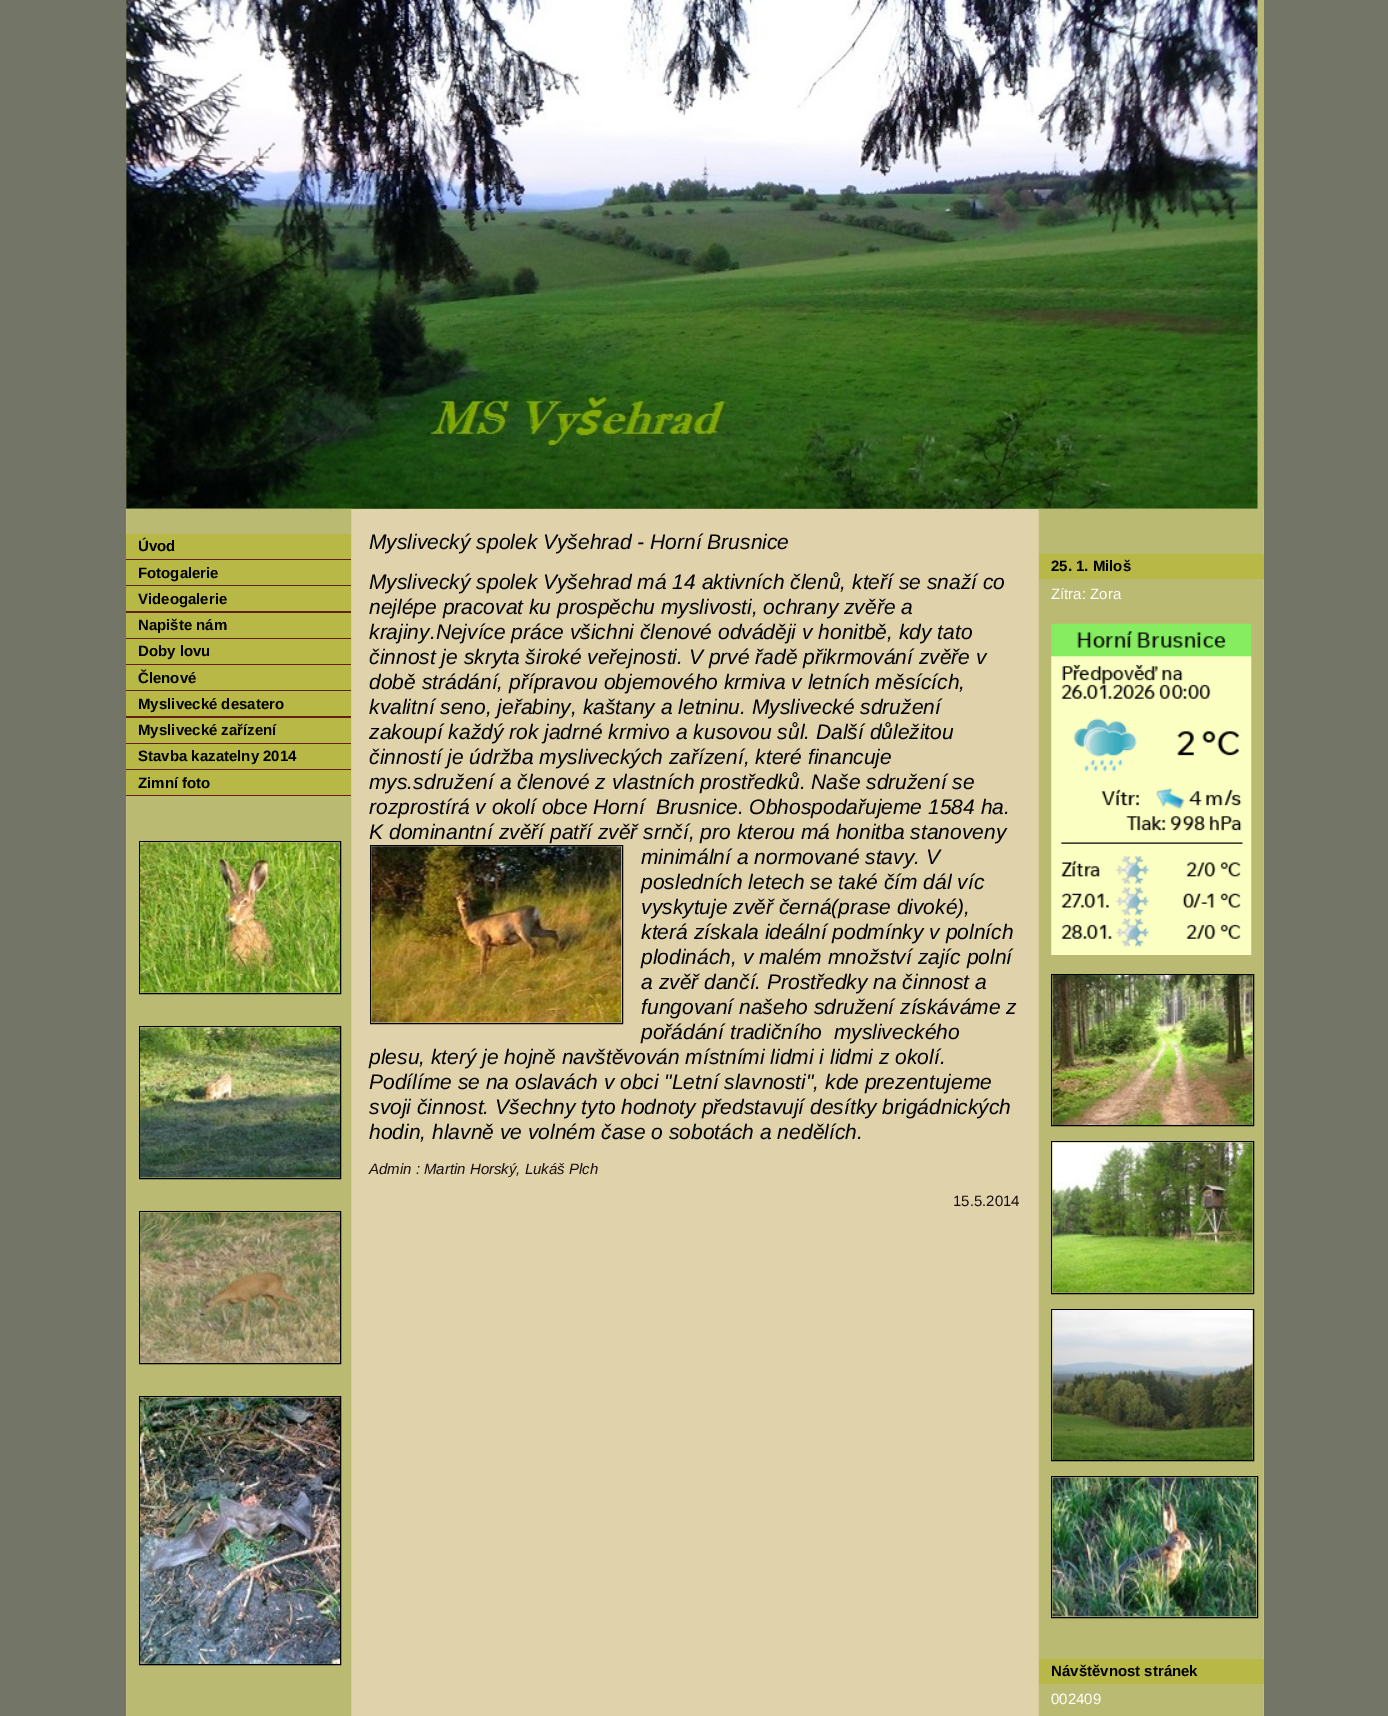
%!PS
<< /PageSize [1388 1716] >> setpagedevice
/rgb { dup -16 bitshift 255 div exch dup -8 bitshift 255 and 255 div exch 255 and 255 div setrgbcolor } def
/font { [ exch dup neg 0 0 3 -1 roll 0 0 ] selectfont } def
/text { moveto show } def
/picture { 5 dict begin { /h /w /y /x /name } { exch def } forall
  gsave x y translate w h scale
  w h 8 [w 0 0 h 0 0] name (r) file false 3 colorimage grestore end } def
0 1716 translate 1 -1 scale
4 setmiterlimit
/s1 { /LiberationSans-Bold 15 font 16#000000 rgb } def
/s2 { /LiberationSans-Italic 21 font 16#000000 rgb } def
/s3 { /LiberationSans-Italic 15 font 16#1A0D0D rgb } def
/s4 { /LiberationSans-Regular 15 font 16#1A0D0D rgb } def
/s5 { /LiberationSans-Regular 15 font 16#FFFFFF rgb } def
16#737566 rgb
0 0 1388 1716 rectfill
16#BABA73 rgb
126 0 1138 509 rectfill
(pic1.raw) 126 0 1132 509 picture
16#E0D3AC rgb
126 509 1138 1207 rectfill
(pic2.raw) 126 508 1138 1208 picture
16#612213 rgb
126 559 225 237 rectfill
16#B8B847 rgb
126 534 225 25 rectfill
s1
(Úvod) 138 551 text
16#B8B847 rgb
126 560 225 25 rectfill
s1
(Fotogalerie) 138 578 text
16#B8B847 rgb
126 586 225 25 rectfill
s1
(Videogalerie) 138 604 text
16#B8B847 rgb
126 613 225 25 rectfill
s1
(Napište nám) 138 630 text
16#B8B847 rgb
126 639 225 25 rectfill
s1
(Doby lovu) 138 656 text
16#B8B847 rgb
126 665 225 25 rectfill
s1
(Členové) 138 683 text
16#B8B847 rgb
126 691 225 25 rectfill
s1
(Myslivecké desatero) 138 709 text
16#B8B847 rgb
126 718 225 25 rectfill
s1
(Myslivecké zařízení) 138 735 text
16#B8B847 rgb
126 744 225 25 rectfill
s1
(Stavba kazatelny 2014) 138 761 text
16#B8B847 rgb
126 770 225 25 rectfill
s1
(Zimní foto) 138 788 text
139.5 841.5 201 152 rectstroke
(pic3.raw) 140 842 200 151 picture
139.5 1026.5 201 152 rectstroke
(pic4.raw) 140 1027 200 151 picture
139.5 1211.5 201 152 rectstroke
(pic5.raw) 140 1212 200 151 picture
139.5 1396.5 201 268 rectstroke
(pic6.raw) 140 1397 200 267 picture
s2
(Myslivecký spolek Vyšehrad - Horní Brusnice) 369 549 text
(Myslivecký spolek Vyšehrad má 14 aktivních členů, kteří se snaží co) 369 589 text
(nejlépe pracovat ku prospěchu myslivosti, ochrany zvěře a) 369 614 text
(krajiny.Nejvíce práce všichni členové odváději v honitbě, kdy tato) 369 639 text
(činnost je skryta široké veřejnosti. V prvé řadě přikrmování zvěře v) 369 664 text
(době strádání, přípravou objemového krmiva v letních měsících,) 369 689 text
(kvalitní seno, jeřabiny, kaštany a letninu. Myslivecké sdružení) 369 714 text
(zakoupí každý rok jadrné krmivo a kusovou sůl. Další důležitou) 369 739 text
(činností je údržba mysliveckých zařízení, které financuje) 369 764 text
(mys.sdružení a členové z vlastních prostředků. Naše sdružení se) 369 789 text
(rozprostírá v okolí obce Horní  Brusnice. Obhospodařujeme 1584 ha.) 369 814 text
(K dominantní zvěří patří zvěř srnčí, pro kterou má honitba stanoveny) 369 839 text
370.5 845.5 252 178 rectstroke
(pic7.raw) 371 846 251 177 picture
(minimální a normované stavy. V) 641 864 text
(posledních letech se také čím dál víc) 641 889 text
(vyskytuje zvěř černá\(prase divoké\),) 641 914 text
(která získala ideální podmínky v polních) 641 939 text
(plodinách, v malém množství zajíc polní) 641 964 text
(a zvěř dančí. Prostředky na činnost a) 641 989 text
(fungovaní našeho sdružení získáváme z) 641 1014 text
(pořádání tradičního  mysliveckého) 641 1039 text
(plesu, který je hojně navštěvován místními lidmi i lidmi z okolí.) 369 1064 text
(Podílíme se na oslavách v obci "Letní slavnosti", kde prezentujeme) 369 1089 text
(svoji činnost. Všechny tyto hodnoty představují desítky brigádnických) 369 1114 text
(hodin, hlavně ve volném čase o sobotách a nedělích.) 369 1139 text
s3
(Admin : Martin Horský, Lukáš Plch) 369 1174 text
s4
(15.5.2014) 953 1206 text
16#B8B847 rgb
1039 554 225 25 rectfill
s1
(25. 1. Miloš) 1051 571 text
s5
(Zítra: Zora) 1051 599 text
(pic8.raw) 1051 623 201 332 picture
16#000000 rgb
1051.5 974.5 202 151 rectstroke
(pic9.raw) 1052 975 201 150 picture
1051.5 1141.5 202 152 rectstroke
(pic10.raw) 1052 1142 201 151 picture
1051.5 1309.5 202 151 rectstroke
(pic11.raw) 1052 1310 201 150 picture
1051.5 1476.5 206 141 rectstroke
(pic12.raw) 1052 1477 205 140 picture
16#B8B847 rgb
1039 1659 225 25 rectfill
s1
(Návštěvnost stránek) 1051 1676 text
s5
(002409) 1051 1704 text
showpage
